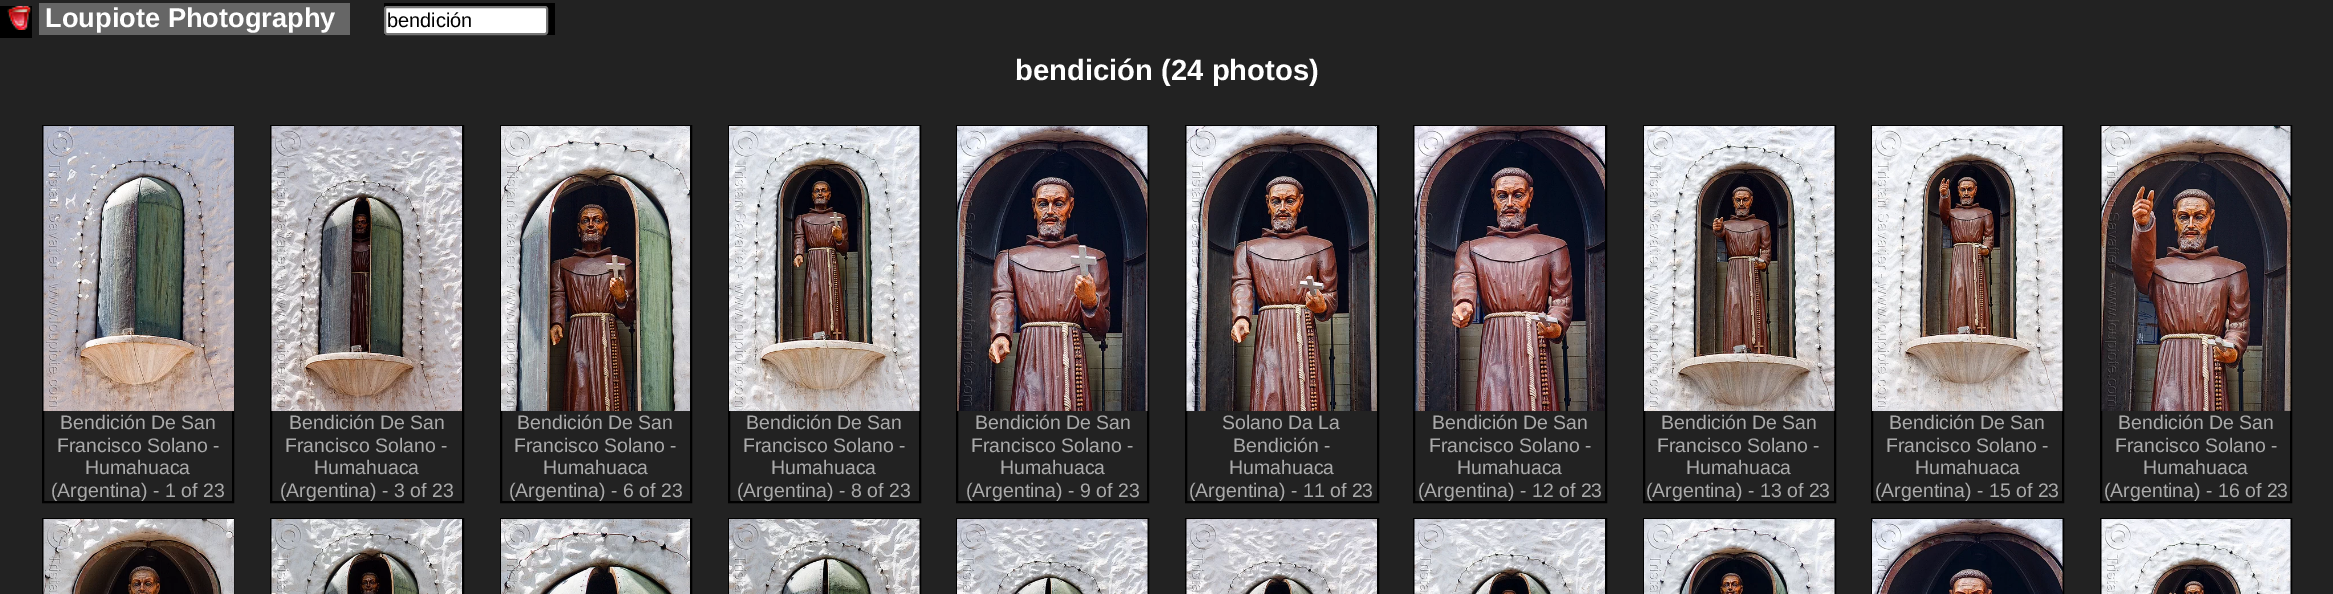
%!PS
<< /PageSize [2333 594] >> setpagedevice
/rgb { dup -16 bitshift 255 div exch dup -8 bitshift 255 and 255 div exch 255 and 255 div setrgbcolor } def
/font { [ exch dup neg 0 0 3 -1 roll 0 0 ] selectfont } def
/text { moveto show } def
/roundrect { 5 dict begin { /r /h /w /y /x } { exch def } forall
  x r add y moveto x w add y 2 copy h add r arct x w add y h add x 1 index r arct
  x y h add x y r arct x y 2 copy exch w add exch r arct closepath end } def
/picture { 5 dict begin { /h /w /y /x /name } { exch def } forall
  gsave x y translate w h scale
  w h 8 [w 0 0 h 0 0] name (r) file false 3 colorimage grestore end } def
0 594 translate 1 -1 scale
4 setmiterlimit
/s1 { /LiberationSans-Bold 27.25 font 16#FFFFFF rgb } def
/s2 { /LiberationSans-Regular 20 font 16#000000 rgb } def
/s3 { /LiberationSans-Bold 29.25 font 16#FFFFFF rgb } def
/s4 { /LiberationSans-Regular 19.5 font 16#AAAAAA rgb } def
16#222222 rgb
0 0 2333 594 rectfill
16#000000 rgb
0 6 32 32 rectfill
(pic1.raw) 7 6 25 24 picture
16#666666 rgb
39 3 311 32 rectfill
s1
(Loupiote Photography) 45 27 text
16#000000 rgb
384 3 171 32 rectfill
16#FFFFFF rgb
385 7 162 27 2 roundrect gsave fill grestore
16#767676 rgb
2 setlinewidth
stroke
s2
(bendición) 387 27 text
s3
(bendición \(24 photos\)) 1015 80 text
16#000000 rgb
43 126 190 376 rectstroke
(pic2.raw) 43 126 191 285 picture
s4
(Bendición De San) 60 429 text
(Francisco Solano -) 57 452 text
(Humahuaca) 85 474 text
(\(Argentina\) - 1 of 23) 51 497 text
16#000000 rgb
271 126 192 376 rectstroke
(pic3.raw) 271 126 191 285 picture
s4
(Bendición De San) 289 429 text
(Francisco Solano -) 285 452 text
(Humahuaca) 314 474 text
(\(Argentina\) - 3 of 23) 280 497 text
16#000000 rgb
501 126 190 376 rectstroke
(pic4.raw) 501 126 189 285 picture
s4
(Bendición De San) 517 429 text
(Francisco Solano -) 514 452 text
(Humahuaca) 543 474 text
(\(Argentina\) - 6 of 23) 509 497 text
16#000000 rgb
729 126 191 376 rectstroke
(pic5.raw) 729 126 191 285 picture
s4
(Bendición De San) 746 429 text
(Francisco Solano -) 743 452 text
(Humahuaca) 771 474 text
(\(Argentina\) - 8 of 23) 737 497 text
16#000000 rgb
957 126 191 376 rectstroke
(pic6.raw) 957 126 191 285 picture
s4
(Bendición De San) 975 429 text
(Francisco Solano -) 971 452 text
(Humahuaca) 1000 474 text
(\(Argentina\) - 9 of 23) 966 497 text
16#000000 rgb
1186 126 192 376 rectstroke
(pic7.raw) 1186 126 191 285 picture
s4
(Solano Da La) 1222 429 text
(Bendición -) 1233 452 text
(Humahuaca) 1229 474 text
(\(Argentina\) - 11 of 23) 1189 497 text
16#000000 rgb
1414 126 192 376 rectstroke
(pic8.raw) 1414 126 191 285 picture
s4
(Bendición De San) 1432 429 text
(Francisco Solano -) 1429 452 text
(Humahuaca) 1457 474 text
(\(Argentina\) - 12 of 23) 1418 497 text
16#000000 rgb
1644 126 191 376 rectstroke
(pic9.raw) 1644 126 191 285 picture
s4
(Bendición De San) 1661 429 text
(Francisco Solano -) 1657 452 text
(Humahuaca) 1686 474 text
(\(Argentina\) - 13 of 23) 1646 497 text
16#000000 rgb
1872 126 191 376 rectstroke
(pic10.raw) 1872 126 191 285 picture
s4
(Bendición De San) 1889 429 text
(Francisco Solano -) 1886 452 text
(Humahuaca) 1915 474 text
(\(Argentina\) - 15 of 23) 1875 497 text
16#000000 rgb
2101 126 190 376 rectstroke
(pic11.raw) 2101 126 190 285 picture
s4
(Bendición De San) 2118 429 text
(Francisco Solano -) 2115 452 text
(Humahuaca) 2143 474 text
(\(Argentina\) - 16 of 23) 2104 497 text
16#000000 rgb
43 519 190 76 rectstroke
(pic12.raw) 43 519 191 75 picture
271 519 192 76 rectstroke
(pic13.raw) 271 519 191 75 picture
501 519 190 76 rectstroke
(pic14.raw) 501 519 189 75 picture
729 519 191 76 rectstroke
(pic15.raw) 729 519 191 75 picture
957 519 191 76 rectstroke
(pic16.raw) 957 519 191 75 picture
1186 519 192 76 rectstroke
(pic17.raw) 1186 519 191 75 picture
1414 519 192 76 rectstroke
(pic18.raw) 1414 519 191 75 picture
1644 519 191 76 rectstroke
(pic19.raw) 1644 519 191 75 picture
1872 519 191 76 rectstroke
(pic20.raw) 1872 519 191 75 picture
2101 519 190 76 rectstroke
(pic21.raw) 2101 519 190 75 picture
showpage
